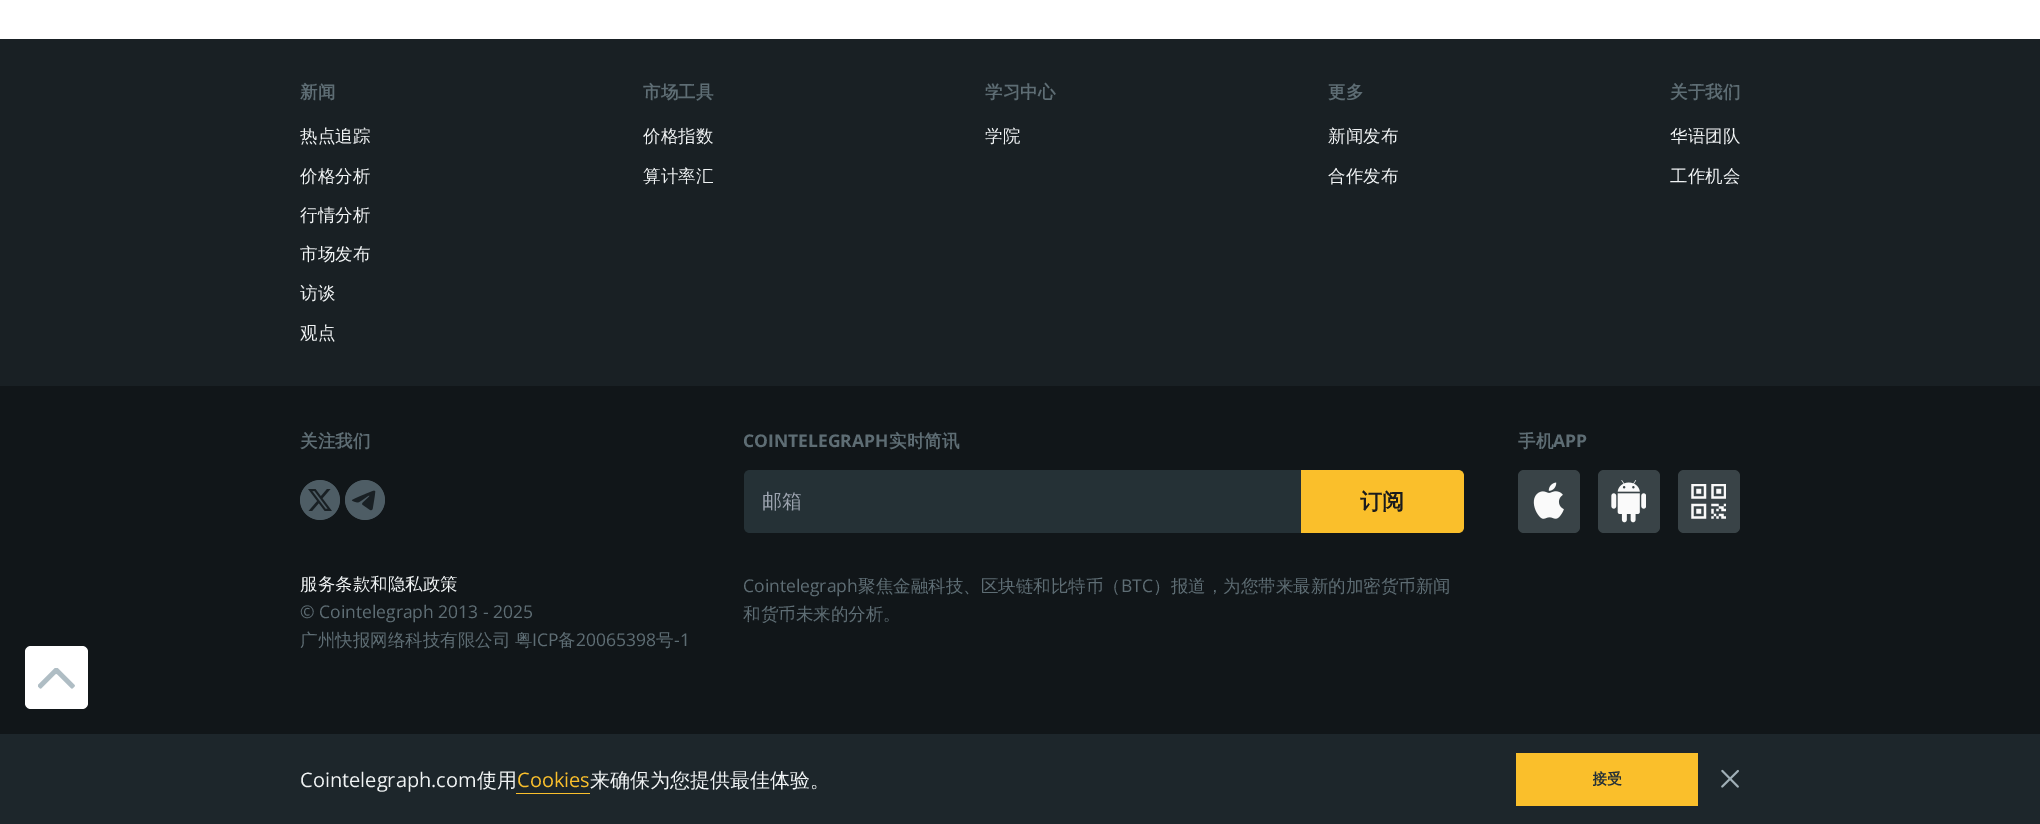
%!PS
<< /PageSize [2040 824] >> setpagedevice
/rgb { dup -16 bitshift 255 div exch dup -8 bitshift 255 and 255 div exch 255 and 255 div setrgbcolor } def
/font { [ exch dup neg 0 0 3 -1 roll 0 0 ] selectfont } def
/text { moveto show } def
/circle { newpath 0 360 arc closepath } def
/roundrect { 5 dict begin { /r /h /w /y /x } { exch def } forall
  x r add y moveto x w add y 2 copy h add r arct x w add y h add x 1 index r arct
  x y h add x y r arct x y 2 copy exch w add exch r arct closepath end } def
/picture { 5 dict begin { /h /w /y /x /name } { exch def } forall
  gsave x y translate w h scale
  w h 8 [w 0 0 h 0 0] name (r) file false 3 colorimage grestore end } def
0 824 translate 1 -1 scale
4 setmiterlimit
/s1 { /WenQuanYiZenHei-Bold 17.5 font 16#5E6D74 rgb } def
/s2 { /WenQuanYiZenHei-Medium 17.5 font 16#F0F3F4 rgb } def
/s3 { /OpenSans-Regular 17.5 font 16#5E6D74 rgb } def
/s4 { /WenQuanYiZenHei-Medium 17.5 font 16#5E6D74 rgb } def
/s5 { /OpenSans-Bold 17.5 font 16#5E6D74 rgb } def
/s6 { /WenQuanYiZenHei-Medium 20 font 16#9CA3AF rgb } def
/s7 { /WenQuanYiZenHei-Bold 22 font 16#1A1B1D rgb } def
/s8 { /OpenSans-Regular 20 font 16#F0F3F4 rgb } def
/s9 { /WenQuanYiZenHei-Medium 20 font 16#F0F3F4 rgb } def
/s10 { /OpenSans-Regular 20 font 16#FABF2C rgb } def
/s11 { /WenQuanYiZenHei-Bold 15 font 16#253137 rgb } def
16#FFFFFF rgb
0 0 2040 824 rectfill
16#192024 rgb
0 39 2040 347 rectfill
s1
(新闻) 300 98 text
s2
(热点追踪) 300 142 text
(价格分析) 300 182 text
(行情分析) 300 221 text
(市场发布) 300 260 text
(访谈) 300 299 text
(观点) 300 339 text
s1
(市场工具) 643 98 text
s2
(价格指数) 643 142 text
(算计率汇) 643 182 text
s1
(学习中心) 985 98 text
s2
(学院) 985 142 text
s1
(更多) 1328 98 text
s2
(新闻发布) 1328 142 text
(合作发布) 1328 182 text
s1
(关于我们) 1670 98 text
s2
(华语团队) 1670 142 text
(工作机会) 1670 182 text
16#111619 rgb
0 386 2040 348 rectfill
s1
(关注我们) 300 447 text
16#4E5D65 rgb
320 500 20 circle fill
(pic1.raw) 300 480 40 40 picture
365 500 20 circle fill
(pic2.raw) 345 480 40 40 picture
s2
(服务条款和隐私政策) 300 590 text
s3
(© Cointelegraph 2013 - 2025) 300 618 text
s4
(广州快报网络科技有限公司) 300 646 text
(粤) 515 646 text
s3
(ICP) 532 646 text
s4
(备) 558 646 text
s3
(20065398) 576 646 text
s4
(号) 656 646 text
s3
(-1) 674 646 text
s5
(COINTELEGRAPH) 743 447 text
s1
(实时简讯) 889 447 text
16#253136 rgb
750 470 moveto 1301 470 lineto 1301 533 lineto 750 533 lineto 746.5 533 744 530.5 744 527 curveto 744 476 lineto 744 472.5 746.5 470 750 470 curveto closepath fill
s6
(邮箱) 762 508 text
16#FABF2B rgb
1301 470 moveto 1458 470 lineto 1461.5 470 1464 472.5 1464 476 curveto 1464 527 lineto 1464 530.5 1461.5 533 1458 533 curveto 1301 533 lineto closepath fill
s7
(订阅) 1360 509 text
s3
(Cointelegraph) 743 592 text
s4
(聚焦金融科技、区块链和比特币（) 858 592 text
s3
(BTC) 1121 592 text
s4
(）报道，为您带来最新的加密货币新闻) 1153 592 text
(和货币未来的分析。) 743 620 text
s1
(手机) 1518 447 text
s5
(APP) 1553 447 text
16#394347 rgb
1518 470 62 63 6 roundrect fill
(pic3.raw) 1533 482 31 37 picture
1598 470 62 63 6 roundrect fill
(pic4.raw) 1611 480 35 43 picture
1678 470 62 63 6 roundrect fill
(pic5.raw) 1691 484 35 35 picture
16#FFFFFF rgb
25 646 63 63 6 roundrect fill
(pic6.raw) 38 668 37 21 picture
16#1D262B rgb
0 734 2040 90 rectfill
s8
(Cointelegraph.com) 300 787 text
s9
(使用) 477 787 text
s10
(Cookies) 517 787 text
516 793 74 1 rectfill
s9
(来确保为您提供最佳体验。) 590 787 text
16#FABF2B rgb
1516 753 182 53 rectfill
gsave
1593 769 30 21 rectclip
s11
(接受) 1592 784 text
grestore
(pic7.raw) 1721 769 18 19 picture
showpage
